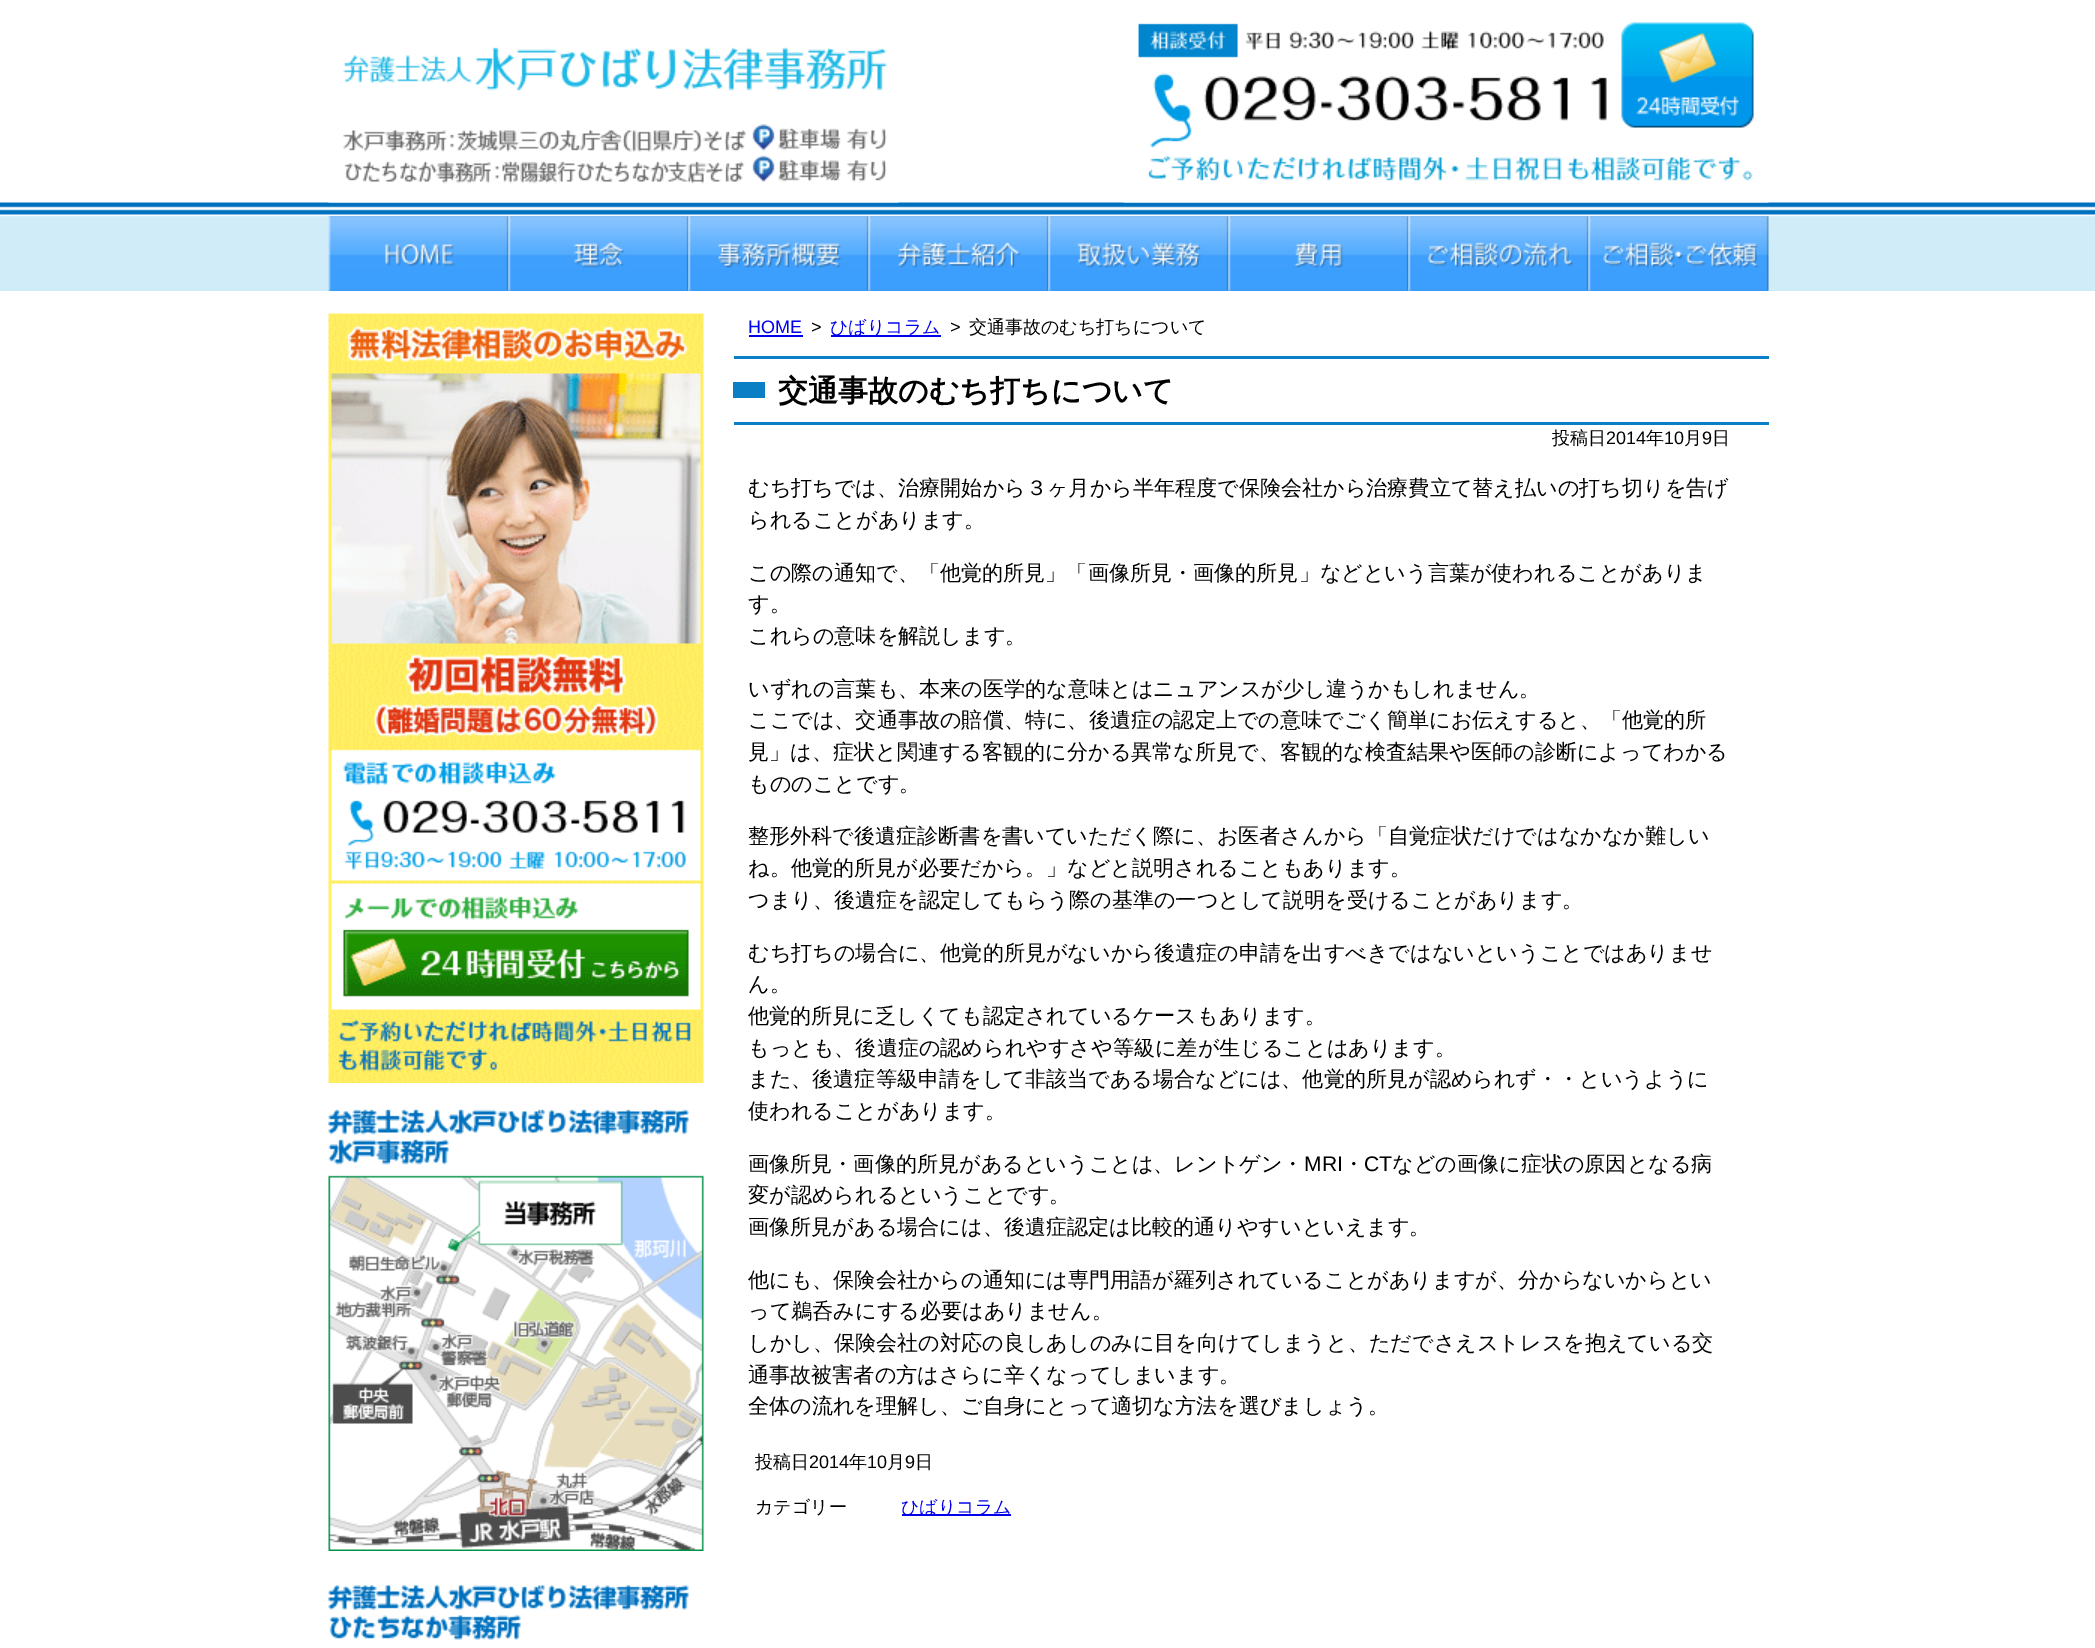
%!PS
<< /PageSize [2095 1648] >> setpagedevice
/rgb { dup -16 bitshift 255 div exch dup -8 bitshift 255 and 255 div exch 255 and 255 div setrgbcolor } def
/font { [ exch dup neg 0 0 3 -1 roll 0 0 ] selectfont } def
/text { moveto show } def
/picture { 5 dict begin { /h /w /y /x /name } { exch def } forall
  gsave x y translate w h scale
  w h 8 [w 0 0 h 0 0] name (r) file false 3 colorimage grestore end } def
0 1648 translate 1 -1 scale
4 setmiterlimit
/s1 { /LiberationSans-Regular 18 font 16#0000EE rgb } def
/s2 { /LiberationSans-Regular 18 font 16#000000 rgb } def
/s3 { /WenQuanYiZenHei-Medium 18 font 16#0000EE rgb } def
/s4 { /WenQuanYiZenHei-Medium 18 font 16#000000 rgb } def
/s5 { /WenQuanYiZenHei-Bold 30 font 16#000000 rgb } def
/s6 { /WenQuanYiZenHei-Medium 21.1 font 16#000000 rgb } def
/s7 { /LiberationSans-Regular 21.1 font 16#000000 rgb } def
16#FFFFFF rgb
0 0 2095 1648 rectfill
(pic1.raw) 0 202 2095 89 picture
(pic2.raw) 328 47 571 156 picture
(pic3.raw) 1123 23 646 180 picture
(pic4.raw) 1621 22 133 106 picture
(pic5.raw) 328 216 181 75 picture
(pic6.raw) 508 216 181 75 picture
(pic7.raw) 688 216 181 75 picture
(pic8.raw) 868 216 181 75 picture
(pic9.raw) 1048 216 181 75 picture
(pic10.raw) 1228 216 181 75 picture
(pic11.raw) 1408 216 181 75 picture
(pic12.raw) 1588 216 181 75 picture
(pic13.raw) 328 313 376 770 picture
(pic14.raw) 328 1109 376 442 picture
(pic15.raw) 328 1585 361 55 picture
s1
(HOME) 748 333 text
749 335 54 2 rectfill
s2
(>) 811 333 text
16#0000EE rgb
831 335 110 2 rectfill
s3
(ひばりコラム) 830 333 text
s2
(>) 950 333 text
s4
(交通事故のむち打ちについて) 969 333 text
16#0B7FC6 rgb
733 382 32 16 rectfill
734 356 1035 3 rectfill
734 422 1035 3 rectfill
s5
(交通事故のむち打ちについて) 778 401 text
s4
(投稿日) 1552 444 text
s2
(2014) 1606 444 text
s4
(年) 1646 444 text
s2
(10) 1664 444 text
s4
(月) 1684 444 text
s2
(9) 1702 444 text
s4
(日) 1712 444 text
s6
(むち打ちでは、治療開始から３ヶ月から半年程度で保険会社から治療費立て替え払いの打ち切りを告げ) 748 495 text
(られることがあります。) 748 527 text
(この際の通知で、「他覚的所見」「画像所見・画像的所見」などという言葉が使われることがありま) 748 580 text
(す。) 748 611 text
(これらの意味を解説します。) 748 643 text
(いずれの言葉も、本来の医学的な意味とはニュアンスが少し違うかもしれません。) 748 696 text
(ここでは、交通事故の賠償、特に、後遺症の認定上での意味でごく簡単にお伝えすると、「他覚的所) 748 727 text
(見」は、症状と関連する客観的に分かる異常な所見で、客観的な検査結果や医師の診断によってわかる) 748 759 text
(もののことです。) 748 791 text
(整形外科で後遺症診断書を書いていただく際に、お医者さんから「自覚症状だけではなかなか難しい) 748 843 text
(ね。他覚的所見が必要だから。」などと説明されることもあります。) 748 875 text
(つまり、後遺症を認定してもらう際の基準の一つとして説明を受けることがあります。) 748 907 text
(むち打ちの場合に、他覚的所見がないから後遺症の申請を出すべきではないということではありませ) 748 960 text
(ん。) 748 991 text
(他覚的所見に乏しくても認定されているケースもあります。) 748 1023 text
(もっとも、後遺症の認められやすさや等級に差が生じることはあります。) 748 1055 text
(また、後遺症等級申請をして非該当である場合などには、他覚的所見が認められず・・というように) 748 1086 text
(使われることがあります。) 748 1118 text
(画像所見・画像的所見があるということは、レントゲン・) 748 1171 text
s7
(MRI) 1304 1171 text
s6
(・) 1343 1171 text
s7
(CT) 1364 1171 text
s6
(などの画像に症状の原因となる病) 1392 1171 text
(変が認められるということです。) 748 1202 text
(画像所見がある場合には、後遺症認定は比較的通りやすいといえます。) 748 1234 text
(他にも、保険会社からの通知には専門用語が羅列されていることがありますが、分からないからとい) 748 1287 text
(って鵜呑みにする必要はありません。) 748 1318 text
(しかし、保険会社の対応の良しあしのみに目を向けてしまうと、ただでさえストレスを抱えている交) 748 1350 text
(通事故被害者の方はさらに辛くなってしまいます。) 748 1382 text
(全体の流れを理解し、ご自身にとって適切な方法を選びましょう。) 748 1413 text
s4
(投稿日) 755 1468 text
s2
(2014) 809 1468 text
s4
(年) 849 1468 text
s2
(10) 867 1468 text
s4
(月) 887 1468 text
s2
(9) 905 1468 text
s4
(日) 915 1468 text
(カテゴリー) 755 1513 text
16#0000EE rgb
902 1514 109 2 rectfill
(ひばりコラム) 901 1513 text
showpage
